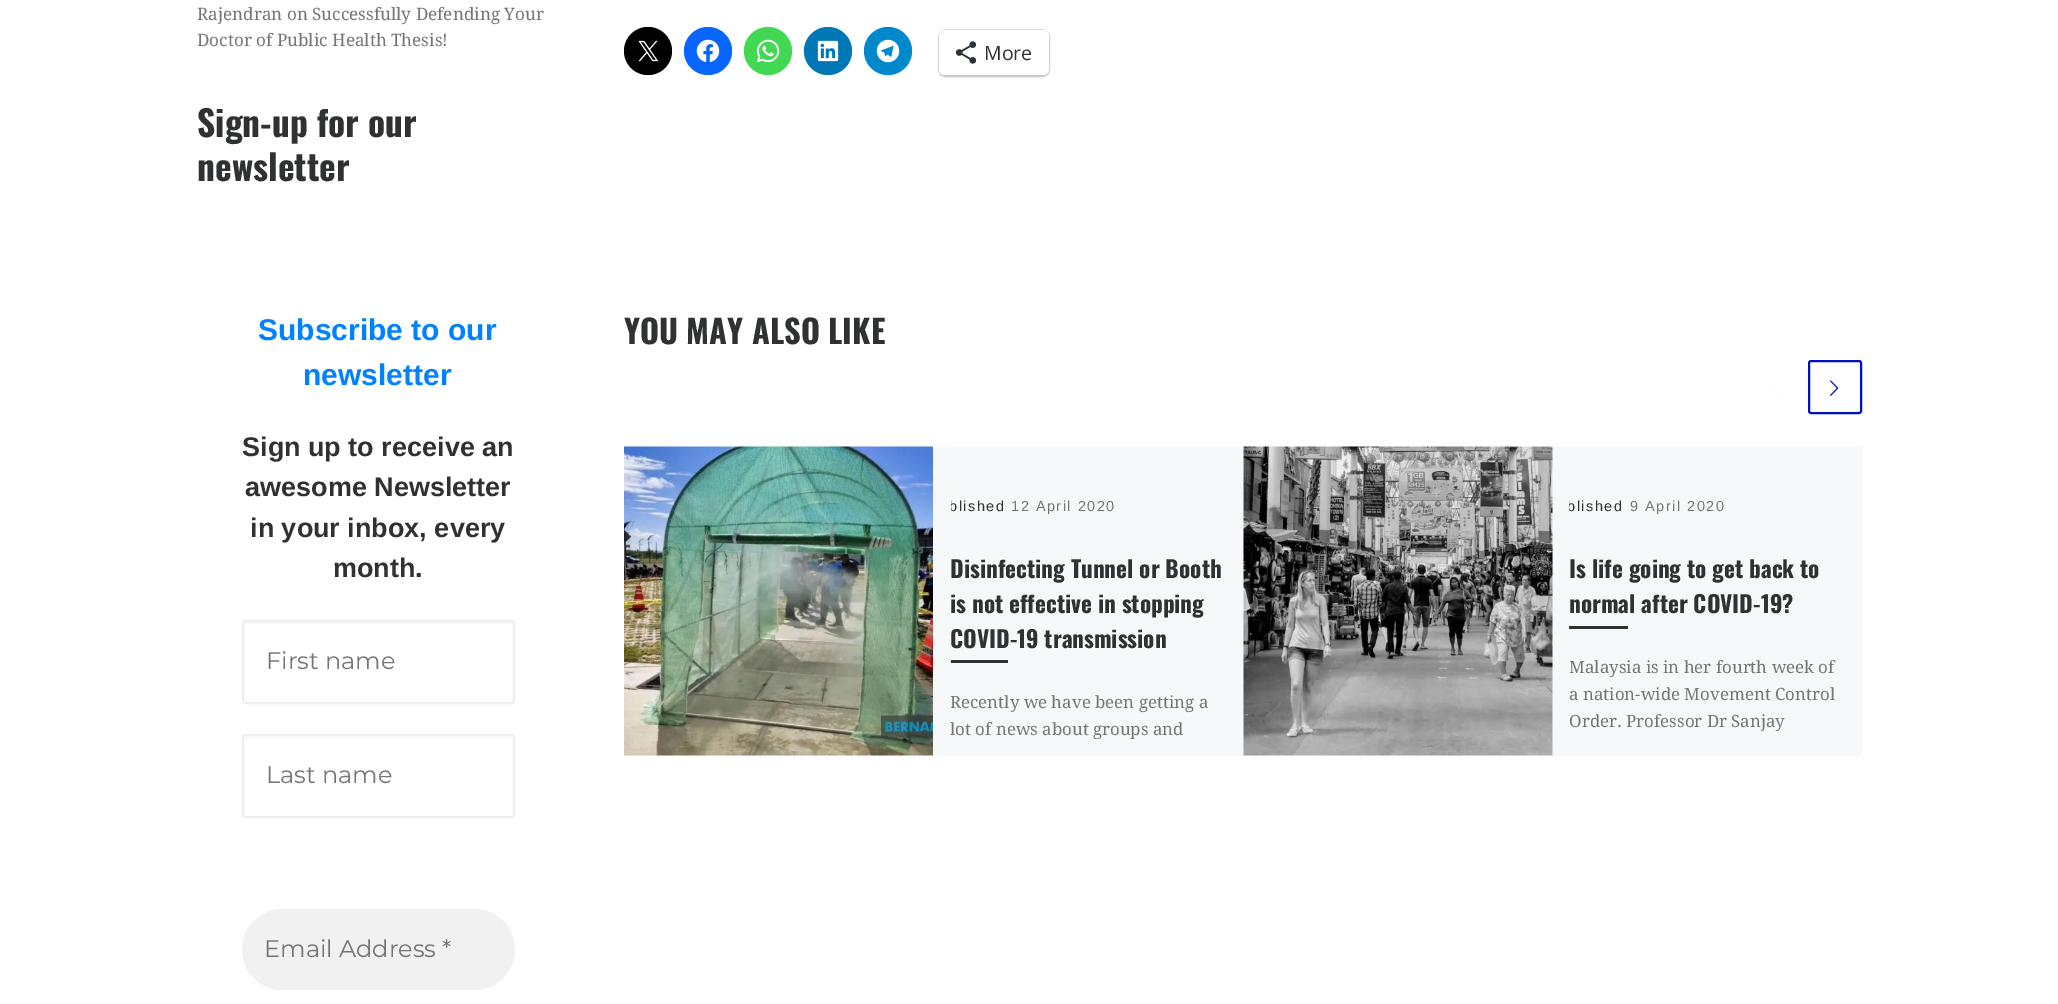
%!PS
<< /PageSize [2058 1004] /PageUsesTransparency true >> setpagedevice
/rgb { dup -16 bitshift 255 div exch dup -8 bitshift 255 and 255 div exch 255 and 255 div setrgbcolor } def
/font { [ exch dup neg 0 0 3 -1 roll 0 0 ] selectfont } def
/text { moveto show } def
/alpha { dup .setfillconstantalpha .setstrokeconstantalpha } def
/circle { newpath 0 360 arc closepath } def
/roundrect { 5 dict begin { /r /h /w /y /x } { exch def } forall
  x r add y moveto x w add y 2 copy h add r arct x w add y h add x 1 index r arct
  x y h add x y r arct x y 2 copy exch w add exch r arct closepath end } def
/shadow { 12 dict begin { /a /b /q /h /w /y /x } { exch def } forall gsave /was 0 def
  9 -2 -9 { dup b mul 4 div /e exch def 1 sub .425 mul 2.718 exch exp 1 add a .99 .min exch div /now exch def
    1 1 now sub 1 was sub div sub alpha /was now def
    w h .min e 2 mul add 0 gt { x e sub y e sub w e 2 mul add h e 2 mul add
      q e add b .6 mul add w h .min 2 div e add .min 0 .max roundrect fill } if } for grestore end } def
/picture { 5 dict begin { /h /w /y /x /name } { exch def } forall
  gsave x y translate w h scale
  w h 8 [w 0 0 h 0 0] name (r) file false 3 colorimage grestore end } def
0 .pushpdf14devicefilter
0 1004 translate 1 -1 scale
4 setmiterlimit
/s1 { /DroidSerif-Regular 17.1 font 16#757575 rgb } def
/s2 { /Oswald-Bold 35.5 font 16#303133 rgb } def
/s3 { /LiberationSans-Bold 30 font 16#0081FF rgb } def
/s4 { /LiberationSans-Bold 27 font 16#303133 rgb } def
/s5 { /Montserrat-Regular 24 font 16#757575 rgb } def
/s6 { /OpenSans-Regular 19.5 font 16#303133 rgb } def
/s7 { /Oswald-Bold 32.5 font 16#303133 rgb } def
/s8 { /Oswald-Bold 23.25 font 16#303133 rgb } def
/s9 { /DroidSerif-Regular 16.9 font 16#757575 rgb } def
16#FFFFFF rgb
0 0 2058 1004 rectfill
s1
(Rajendran on Successfully Defending Your) 197 20 text
(Doctor of Public Health Thesis!) 197 46 text
s2
(Sign-up for our) 197 137 text
(newsletter) 197 181 text
s3
(Subscribe to our) 258 340 text
(newsletter) 303 385 text
s4
(Sign up to receive an) 242 456 text
(awesome Newsletter) 245 496 text
(in your inbox, every) 250 537 text
(month.) 333 577 text
16#F9F9F9 rgb
244 624 moveto 512 624 lineto 513 626 lineto 513 625 514 622 512 621 curveto 244 621 lineto 242 621 243 625 243 626 curveto closepath fill
16#ECEEEF rgb
2 setlinewidth
243 621 271 82 2 roundrect stroke
s5
(First name) 266 669 text
16#F9F9F9 rgb
244 738 moveto 512 738 lineto 513 740 lineto 513 739 514 735 512 735 curveto 244 735 lineto 242 736 243 739 243 740 curveto closepath fill
16#ECEEEF rgb
243 735 271 82 2 roundrect stroke
s5
(Last name) 266 783 text
16#F1F1F1 rgb
242 909 273 81 40.5 roundrect fill
s5
(Email Address *) 264 957 text
16#000000 rgb
648 51 24 circle fill
(pic1.raw) 638 40 21 22 picture
16#0866FF rgb
708 51 24 circle fill
(pic2.raw) 696 39 24 23 picture
16#43D854 rgb
768 51 24 circle fill
(pic3.raw) 756 39 24 24 picture
16#0077B5 rgb
828 51 24 circle fill
(pic4.raw) 817 40 22 22 picture
16#0088CC rgb
888 51 24 circle fill
(pic5.raw) 876 39 24 24 picture
16#E0E0E0 rgb
939 30 110 46 7 roundrect stroke
16#000000 rgb
939 32 110 45 6 1.5 0.12 shadow
16#FFFFFF rgb
939 30 110 45 6 roundrect fill
(pic6.raw) 955 41 22 23 picture
s6
(More) 984 60 text
s7
(YOU MAY ALSO LIKE) 624 344 text
(pic7.raw) 1772 381 7 14 picture
16#0011C2 rgb
1809 361 52 52 2 roundrect stroke
(pic8.raw) 1830 380 9 16 picture
16#F7F8F9 rgb
624 447 1238 309 rectfill
(pic9.raw) 624 446 309 310 picture
gsave
951 464 275 276 rectclip
/LiberationSans-Regular 14.5 font
16#303133 rgb
949 511 moveto 1.5 0 (blished) ashow
grestore
/LiberationSans-Regular 14.5 font
16#757575 rgb
1011 511 moveto 1.5 0 (12 April 2020) ashow
s8
(Disinfecting Tunnel or Booth) 950 578 text
(is not effective in stopping) 950 613 text
(COVID-19 transmission) 950 648 text
16#313131 rgb
951 660 57 3 rectfill
s9
(Recently we have been getting a) 950 708 text
(lot of news about groups and) 950 735 text
(pic10.raw) 1243 446 310 310 picture
gsave
1569 464 276 276 rectclip
/LiberationSans-Regular 14.5 font
16#303133 rgb
1567 511 moveto 1.5 0 (blished) ashow
grestore
/LiberationSans-Regular 14.5 font
1630 511 moveto 1.5 0 (9 April 2020) ashow
s8
(Is life going to get back to) 1569 578 text
(normal after COVID-19?) 1569 613 text
16#313131 rgb
1569 626 59 3 rectfill
s9
(Malaysia is in her fourth week of) 1569 673 text
(a nation-wide Movement Control) 1569 700 text
(Order. Professor Dr Sanjay) 1569 727 text
.poppdf14devicefilter showpage
